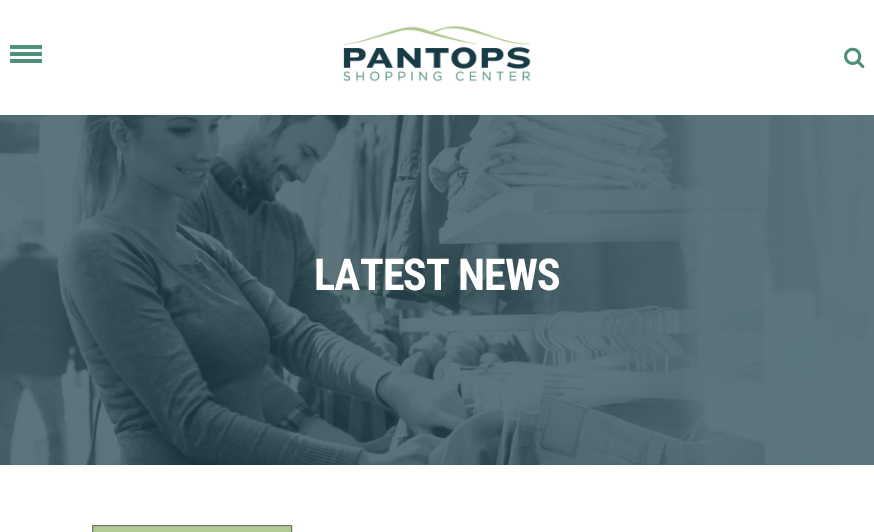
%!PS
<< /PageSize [874 532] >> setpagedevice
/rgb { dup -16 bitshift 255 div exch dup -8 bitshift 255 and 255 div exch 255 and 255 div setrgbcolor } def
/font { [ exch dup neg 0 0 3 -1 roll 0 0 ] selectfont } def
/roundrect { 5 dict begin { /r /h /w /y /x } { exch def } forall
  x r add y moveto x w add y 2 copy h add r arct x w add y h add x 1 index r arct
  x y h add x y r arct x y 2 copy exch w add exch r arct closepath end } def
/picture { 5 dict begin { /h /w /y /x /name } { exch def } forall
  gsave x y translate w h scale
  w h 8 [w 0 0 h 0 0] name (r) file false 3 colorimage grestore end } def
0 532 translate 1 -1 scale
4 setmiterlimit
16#FFFFFF rgb
0 0 874 532 rectfill
16#4E907C rgb
10 45 32 4 1 roundrect fill
10 52 32 4 1 roundrect fill
10 59 32 4 1 roundrect fill
(pic1.raw) 343 25 188 57 picture
(pic2.raw) 844 47 21 22 picture
(pic3.raw) 0 115 874 350 picture
/RobotoCondensed-Bold 44 font
16#FFFFFF rgb
314 290 moveto -0.9 0 (LATEST NEWS) ashow
16#B2CB93 rgb
92.5 525.5 moveto 291.5 525.5 lineto 291.5 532.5 lineto 92.5 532.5 lineto closepath gsave fill grestore
16#767676 rgb
stroke
showpage
